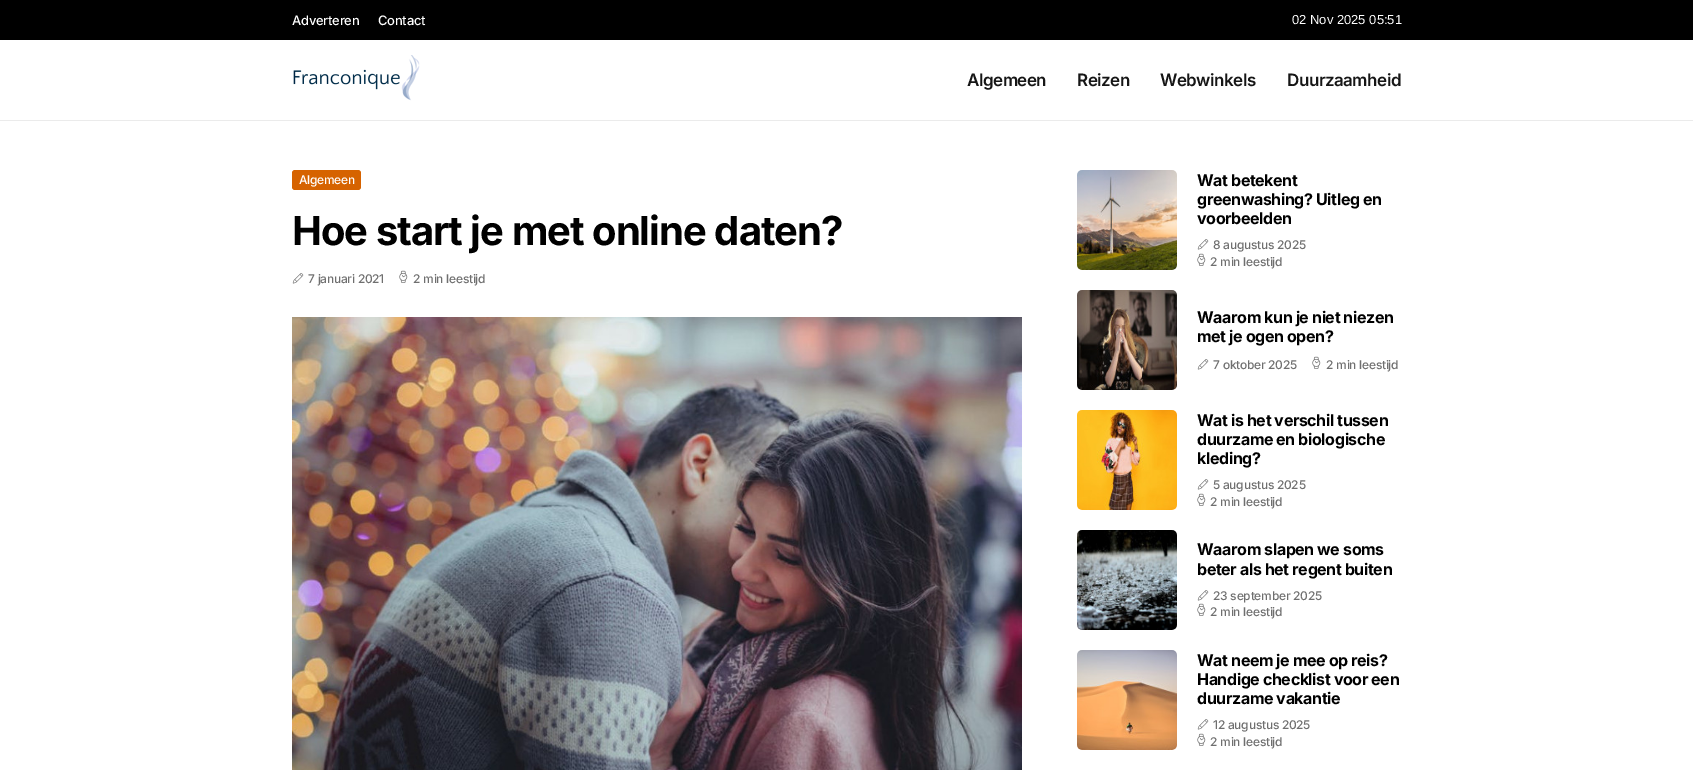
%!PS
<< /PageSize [1693 770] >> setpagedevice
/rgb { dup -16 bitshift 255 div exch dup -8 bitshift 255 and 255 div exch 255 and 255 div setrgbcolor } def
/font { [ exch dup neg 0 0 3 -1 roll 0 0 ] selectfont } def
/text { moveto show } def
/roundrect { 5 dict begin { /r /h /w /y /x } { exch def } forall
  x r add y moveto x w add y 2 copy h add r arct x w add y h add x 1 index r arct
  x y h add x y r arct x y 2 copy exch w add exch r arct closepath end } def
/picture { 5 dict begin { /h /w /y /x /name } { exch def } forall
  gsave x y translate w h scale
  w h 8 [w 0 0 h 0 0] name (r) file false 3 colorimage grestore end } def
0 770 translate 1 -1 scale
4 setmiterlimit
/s1 { /Arimo-Regular 13 font 16#FFFFFF rgb } def
16#FFFFFF rgb
0 0 1693 770 rectfill
16#000000 rgb
0 0 1693 40 rectfill
/Inter-Medium 13 font
16#FFFFFF rgb
292 25 moveto -0.25 0 (Adverteren) ashow
378 25 moveto -0.25 0 (Contact) ashow
s1
(02 Nov 2025 05:51) 1292 24 text
16#EBEBEB rgb
0 120 1693 1 rectfill
(pic1.raw) 293 55 127 46 picture
/Inter-SemiBold 17 font
16#161616 rgb
967 86 moveto -0.5 0 (Algemeen) ashow
1077 86 moveto -0.5 0 (Reizen) ashow
1160 86 moveto -0.5 0 (Webwinkels) ashow
1287 86 moveto -0.5 0 (Duurzaamheid) ashow
16#D66300 rgb
292 170 69 20 3 roundrect fill
/Inter-Medium 12 font
16#FFFFFF rgb
299 184 moveto -0.25 0 (Algemeen) ashow
/Inter-Bold 40 font
16#000000 rgb
292 245 moveto -1 0 (Hoe start je met online daten?) ashow
(pic2.raw) 292 273 12 11 picture
/Inter-Medium 12 font
16#6F6F6F rgb
308 283 moveto -0.25 0 (7 januari 2021) ashow
(pic3.raw) 399 270 9 13 picture
413 283 moveto -0.25 0 (2 min leestijd) ashow
(pic4.raw) 292 317 730 453 picture
(pic5.raw) 1077 170 100 100 picture
/Inter-Bold 16 font
16#000000 rgb
1197 186 moveto -0.4 0 (Wat betekent) ashow
1197 205 moveto -0.4 0 (greenwashing? Uitleg en) ashow
1197 224 moveto -0.4 0 (voorbeelden) ashow
(pic2.raw) 1197 239 12 11 picture
/Inter-Medium 12 font
16#6F6F6F rgb
1213 249 moveto -0.25 0 (8 augustus 2025) ashow
(pic3.raw) 1197 253 9 13 picture
1210 266 moveto -0.25 0 (2 min leestijd) ashow
(pic6.raw) 1077 290 100 100 picture
/Inter-Bold 16 font
16#000000 rgb
1197 323 moveto -0.4 0 (Waarom kun je niet niezen) ashow
1197 342 moveto -0.4 0 (met je ogen open?) ashow
(pic2.raw) 1197 359 12 11 picture
/Inter-Medium 12 font
16#6F6F6F rgb
1213 369 moveto -0.25 0 (7 oktober 2025) ashow
(pic3.raw) 1312 356 9 13 picture
1326 369 moveto -0.25 0 (2 min leestijd) ashow
(pic7.raw) 1077 410 100 100 picture
/Inter-Bold 16 font
16#000000 rgb
1197 426 moveto -0.4 0 (Wat is het verschil tussen) ashow
1197 445 moveto -0.4 0 (duurzame en biologische) ashow
1197 464 moveto -0.4 0 (kleding?) ashow
(pic2.raw) 1197 479 12 11 picture
/Inter-Medium 12 font
16#6F6F6F rgb
1213 489 moveto -0.25 0 (5 augustus 2025) ashow
(pic3.raw) 1197 493 9 13 picture
1210 506 moveto -0.25 0 (2 min leestijd) ashow
(pic8.raw) 1077 530 100 100 picture
/Inter-Bold 16 font
16#000000 rgb
1197 555 moveto -0.4 0 (Waarom slapen we soms) ashow
1197 575 moveto -0.4 0 (beter als het regent buiten) ashow
(pic2.raw) 1197 590 12 11 picture
/Inter-Medium 12 font
16#6F6F6F rgb
1213 600 moveto -0.25 0 (23 september 2025) ashow
(pic3.raw) 1197 603 9 13 picture
1210 616 moveto -0.25 0 (2 min leestijd) ashow
(pic9.raw) 1077 650 100 100 picture
/Inter-Bold 16 font
16#000000 rgb
1197 666 moveto -0.4 0 (Wat neem je mee op reis?) ashow
1197 685 moveto -0.4 0 (Handige checklist voor een) ashow
1197 704 moveto -0.4 0 (duurzame vakantie) ashow
(pic2.raw) 1197 719 12 11 picture
/Inter-Medium 12 font
16#6F6F6F rgb
1213 729 moveto -0.25 0 (12 augustus 2025) ashow
(pic3.raw) 1197 733 9 13 picture
1210 746 moveto -0.25 0 (2 min leestijd) ashow
showpage
